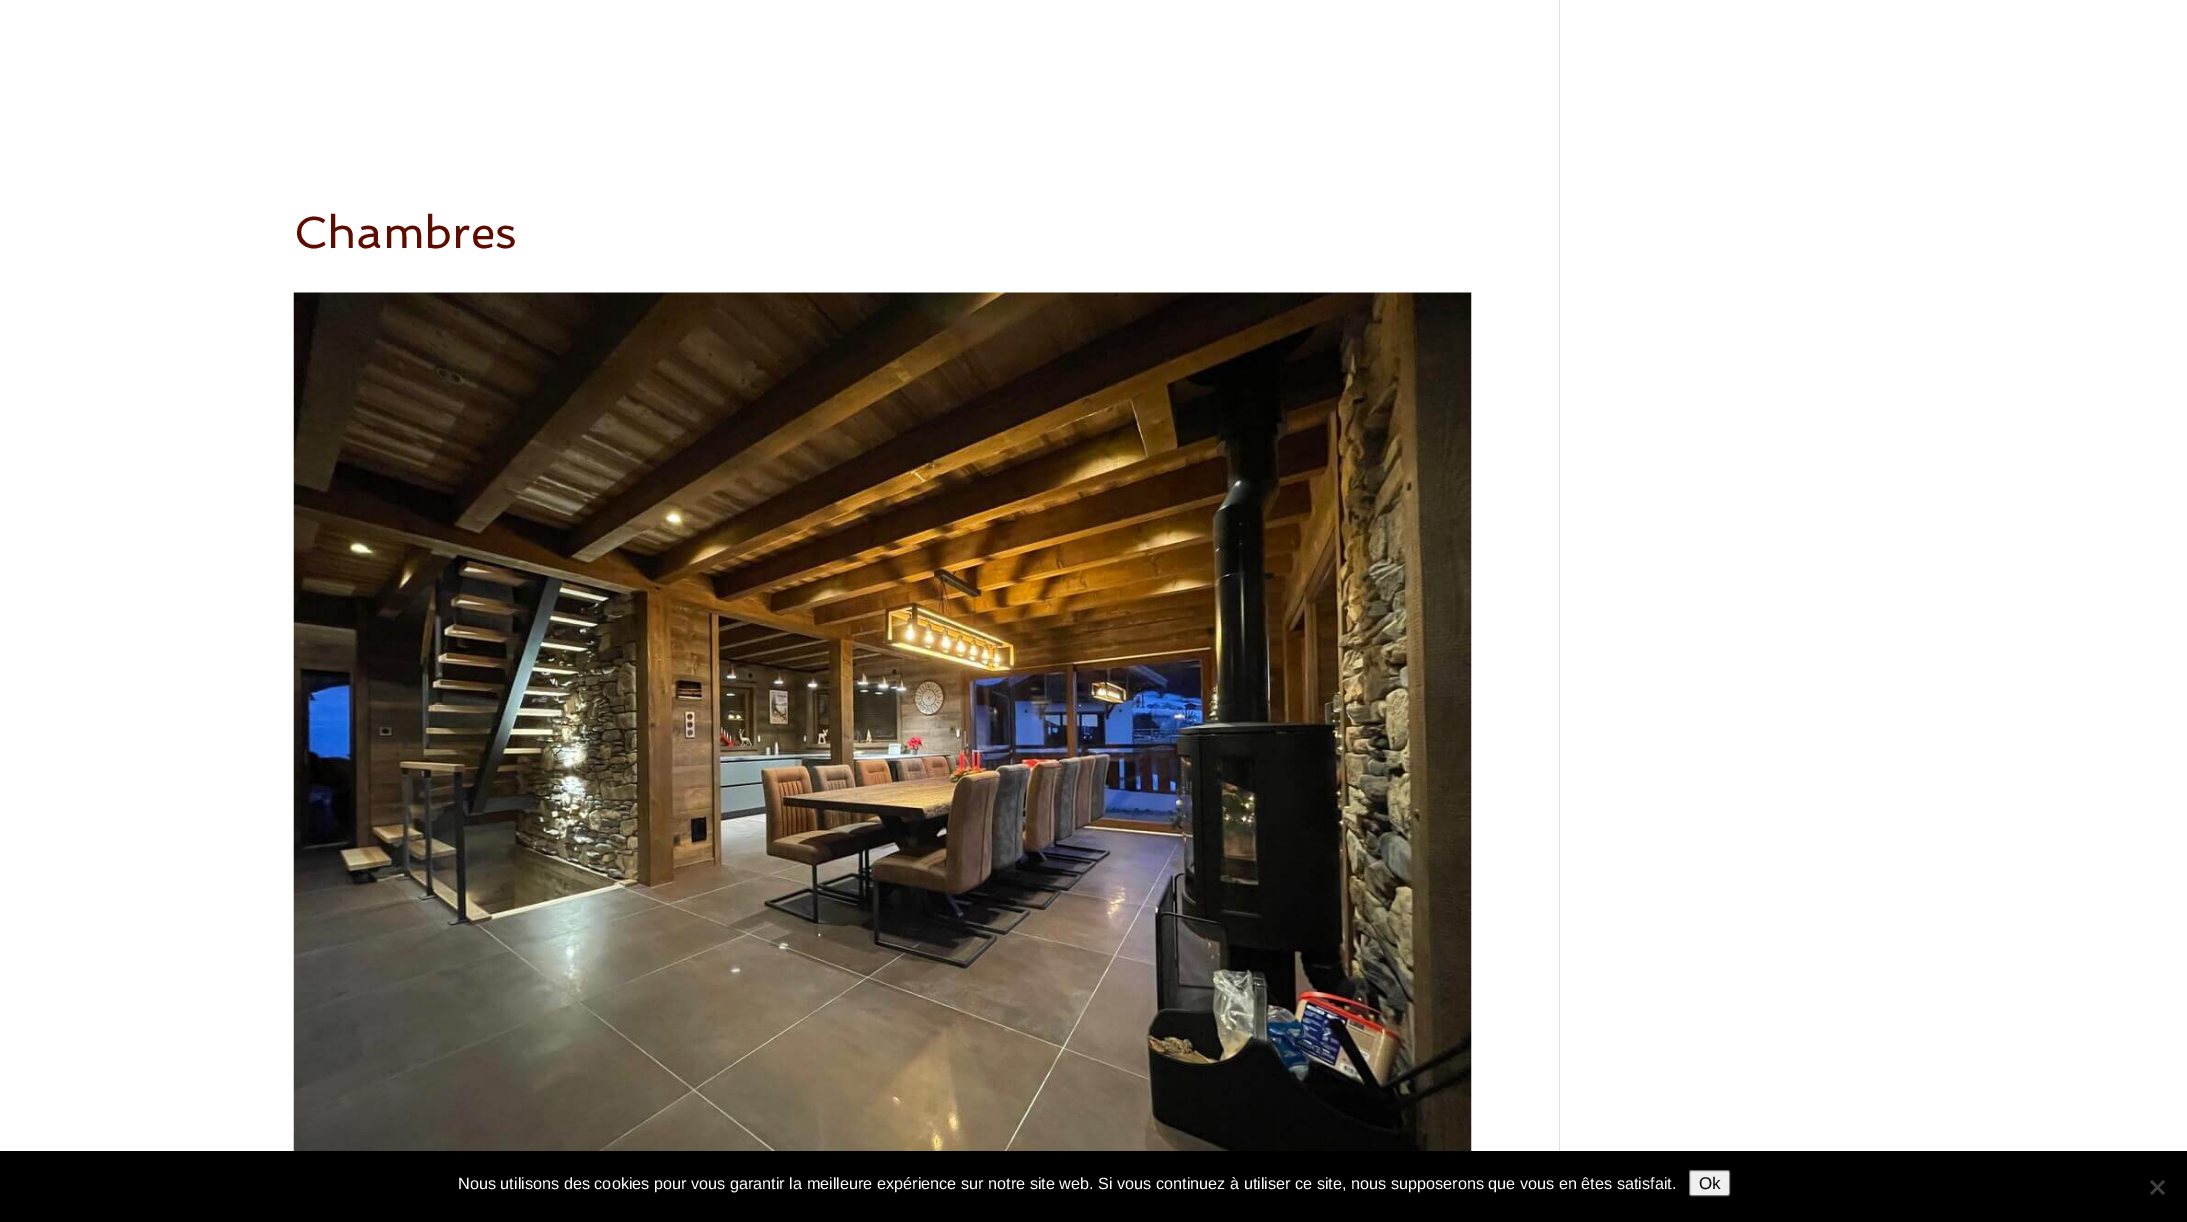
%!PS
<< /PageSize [2187 1222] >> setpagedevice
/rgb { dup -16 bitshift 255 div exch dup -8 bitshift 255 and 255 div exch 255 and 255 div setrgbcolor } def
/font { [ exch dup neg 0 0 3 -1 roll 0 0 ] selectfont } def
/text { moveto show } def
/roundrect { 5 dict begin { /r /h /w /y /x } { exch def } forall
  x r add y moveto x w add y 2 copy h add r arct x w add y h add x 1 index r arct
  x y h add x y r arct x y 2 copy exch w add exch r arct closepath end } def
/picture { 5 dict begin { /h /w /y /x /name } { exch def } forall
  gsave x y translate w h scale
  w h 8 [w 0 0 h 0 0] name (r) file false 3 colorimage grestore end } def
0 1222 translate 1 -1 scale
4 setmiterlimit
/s1 { /Spinnaker-Regular 45 font 16#5E0C00 rgb } def
/s2 { /LiberationSans-Regular 16.25 font 16#FFFFFF rgb } def
/s3 { /LiberationSans-Regular 17 font 16#000000 rgb } def
16#FFFFFF rgb
0 0 2187 1222 rectfill
s1
(Chambres) 294 248 text
(pic1.raw) 293 292 1179 859 picture
16#E2E2E2 rgb
1559 0 1 1151 rectfill
16#000000 rgb
0 1151 2187 71 rectfill
s2
(Nous utilisons des cookies pour vous garantir la meilleure expérience sur notre site web. Si vous continuez à utiliser ce site, nous supposerons que vous en êtes satisfait.) 458 1189 text
16#EFEFEF rgb
1689.5 1170.5 40 25 2 roundrect gsave fill grestore
16#767676 rgb
stroke
s3
(Ok) 1699 1189 text
16#404040 rgb
2163 1180 moveto 2165 1182 lineto 2152 1195 lineto 2150 1193 lineto closepath fill
2150 1182 moveto 2152 1180 lineto 2165 1193 lineto 2163 1195 lineto closepath fill
showpage
